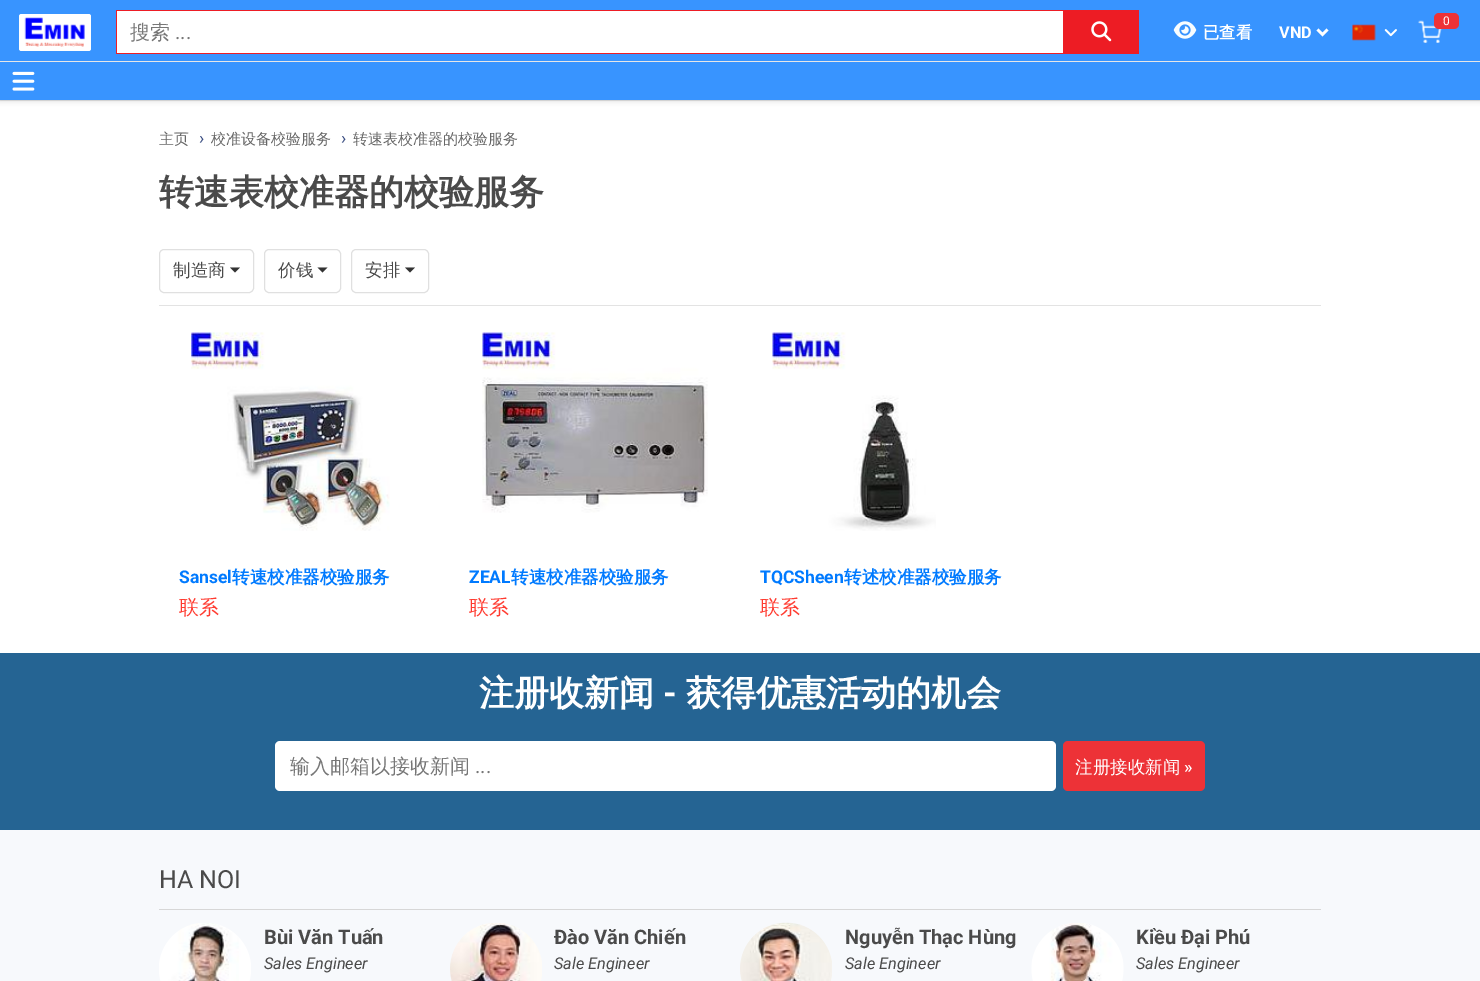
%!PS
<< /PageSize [1480 981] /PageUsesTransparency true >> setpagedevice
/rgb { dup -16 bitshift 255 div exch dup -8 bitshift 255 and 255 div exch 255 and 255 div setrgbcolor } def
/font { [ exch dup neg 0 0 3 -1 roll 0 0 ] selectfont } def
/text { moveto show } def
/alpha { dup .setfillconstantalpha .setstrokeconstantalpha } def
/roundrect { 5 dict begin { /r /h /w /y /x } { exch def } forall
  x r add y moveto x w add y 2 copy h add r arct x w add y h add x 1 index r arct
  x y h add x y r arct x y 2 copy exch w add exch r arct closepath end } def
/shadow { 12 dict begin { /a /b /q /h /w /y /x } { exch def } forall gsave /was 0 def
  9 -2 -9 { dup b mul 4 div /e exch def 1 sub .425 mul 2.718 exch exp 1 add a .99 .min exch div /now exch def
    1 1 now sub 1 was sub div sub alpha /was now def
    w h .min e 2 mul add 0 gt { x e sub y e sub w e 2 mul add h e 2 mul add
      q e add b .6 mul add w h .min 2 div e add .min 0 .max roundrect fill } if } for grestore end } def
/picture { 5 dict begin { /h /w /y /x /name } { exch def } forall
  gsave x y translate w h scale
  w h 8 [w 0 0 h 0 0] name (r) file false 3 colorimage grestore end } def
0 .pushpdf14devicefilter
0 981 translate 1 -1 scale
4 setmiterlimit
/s1 { /WenQuanYiZenHei-Medium 20 font 16#777777 rgb } def
/s2 { /Roboto-Regular 20 font 16#777777 rgb } def
/s3 { /Roboto-Regular 12 font 16#FFFFFF rgb } def
/s4 { /WenQuanYiZenHei-Bold 16.25 font 16#FFFFFF rgb } def
/s5 { /Roboto-Bold 16.25 font 16#FFFFFF rgb } def
/s6 { /WenQuanYiZenHei-Medium 15 font 16#666666 rgb } def
/s7 { /Roboto-Regular 17.5 font 16#394C81 rgb } def
/s8 { /WenQuanYiZenHei-Bold 35 font 16#4A4A4A rgb } def
/s9 { /WenQuanYiZenHei-Medium 17.5 font 16#4A4A4A rgb } def
/s10 { /Roboto-Bold 17.5 font 16#007AFF rgb } def
/s11 { /WenQuanYiZenHei-Bold 17.5 font 16#007AFF rgb } def
/s12 { /WenQuanYiZenHei-Medium 20 font 16#FF3B30 rgb } def
/s13 { /WenQuanYiZenHei-Bold 35 font 16#FFFFFF rgb } def
/s14 { /Roboto-Bold 35 font 16#FFFFFF rgb } def
/s15 { /WenQuanYiZenHei-Medium 17.5 font 16#FFFFFF rgb } def
/s16 { /Roboto-Medium 17.5 font 16#FFFFFF rgb } def
/s17 { /Roboto-Regular 25 font 16#4A4A4A rgb } def
/s18 { /Roboto-Bold 20 font 16#4A4A4A rgb } def
/s19 { /Roboto-Italic 16.25 font 16#4A4A4A rgb } def
16#F7F9FC rgb
0 0 1480 981 rectfill
16#E8E8E8 rgb
0 100 1480 1 rectfill
16#FFFFFF rgb
0 101 1480 552 rectfill
16#000000 rgb
0 63 1480 37 0 3 0.21 shadow
16#3894FF rgb
0 0 1480 100 rectfill
(pic1.raw) 12 71 23 20 picture
16#E7E7E7 rgb
0 61 1480 1 rectfill
16#FFFFFF rgb
19 14 72 37 2.5 roundrect fill
(pic2.raw) 24 17 61 30 picture
117 11 946 42 rectfill
16#ED1D25 rgb
116 10 948 1 rectfill
1063 10 1 44 rectfill
116 53 948 1 rectfill
116 10 1 44 rectfill
s1
(搜索) 130 39 text
s2
(...) 175 39 text
16#ED1C24 rgb
1064 10 75 44 rectfill
(pic3.raw) 1091 21 21 21 picture
(pic4.raw) 1418 20 24 23 picture
16#ED3237 rgb
1434 13 25 16 5 roundrect fill
s3
(0) 1443 25 text
(pic5.raw) 1173 21 24 18 picture
s4
(已查看) 1203 38 text
2.5 setlinewidth
1317.5 29.5 moveto 1322.5 34.5 lineto 1327.5 29.5 lineto stroke
s5
(VND) 1279 38 text
(pic6.raw) 1352 24 24 17 picture
(pic7.raw) 1384 29 13 8 picture
s6
(主页) 159 144 text
s7
(›) 199 144 text
s6
(校准设备校验服务) 211 144 text
s7
(›) 341 144 text
s6
(转速表校准器的校验服务) 353 144 text
s8
(转速表校准器的校验服务) 159 204 text
16#E3E3E3 rgb
159 305 1162 1 rectfill
16#E0E0E0 rgb
1 setlinewidth
159.5 249.5 94 43 4.5 roundrect stroke
s9
(制造商) 173 276 text
16#333333 rgb
230 267.5 moveto 240 267.5 lineto 235 272.5 lineto closepath fill
16#E0E0E0 rgb
264.5 249.5 76 43 4.5 roundrect stroke
s9
(价钱) 278 276 text
16#333333 rgb
317.5 267.5 moveto 327.5 267.5 lineto 322.5 272.5 lineto closepath fill
16#E0E0E0 rgb
351.5 249.5 77 43 4.5 roundrect stroke
s9
(安排) 365 276 text
16#333333 rgb
405 267.5 moveto 415 267.5 lineto 410 272.5 lineto closepath fill
(pic8.raw) 191 332 199 199 picture
s10
(Sansel) 179 583 text
s11
(转速校准器校验服务) 232 583 text
s12
(联系) 179 614 text
(pic9.raw) 482 332 226 181 picture
s10
(ZEAL) 469 583 text
s11
(转速校准器校验服务) 511 583 text
s12
(联系) 469 614 text
(pic10.raw) 772 332 164 199 picture
s10
(TQCSheen) 760 583 text
s11
(转述校准器校验服务) 844 583 text
s12
(联系) 760 614 text
16#256493 rgb
0 653 1480 177 rectfill
s13
(注册收新闻) 479 705 text
s14
(-) 663 705 text
s13
(获得优惠活动的机会) 686 705 text
275 741 781 50 5 roundrect fill
s1
(输入邮箱以接收新闻) 290 773 text
s2
(...) 475 773 text
16#ED3237 rgb
1063 741 142 50 5 roundrect fill
s15
(注册接收新闻) 1075 773 text
s16
(») 1184 773 text
s17
(HA NOI) 159 888 text
16#D7D7D7 rgb
159 909 1162 1 rectfill
(pic11.raw) 159 923 92 58 picture
s18
(Bùi Văn Tuấn) 264 944 text
s19
(Sales Engineer) 264 969 text
(pic12.raw) 450 923 92 58 picture
s18
(Đào Văn Chiến) 554 944 text
s19
(Sale Engineer) 554 969 text
(pic13.raw) 740 922 92 59 picture
s18
(Nguyễn Thạc Hùng) 845 944 text
s19
(Sale Engineer) 845 969 text
(pic14.raw) 1031 923 93 58 picture
s18
(Kiều Đại Phú) 1136 944 text
s19
(Sales Engineer) 1136 969 text
.poppdf14devicefilter showpage
